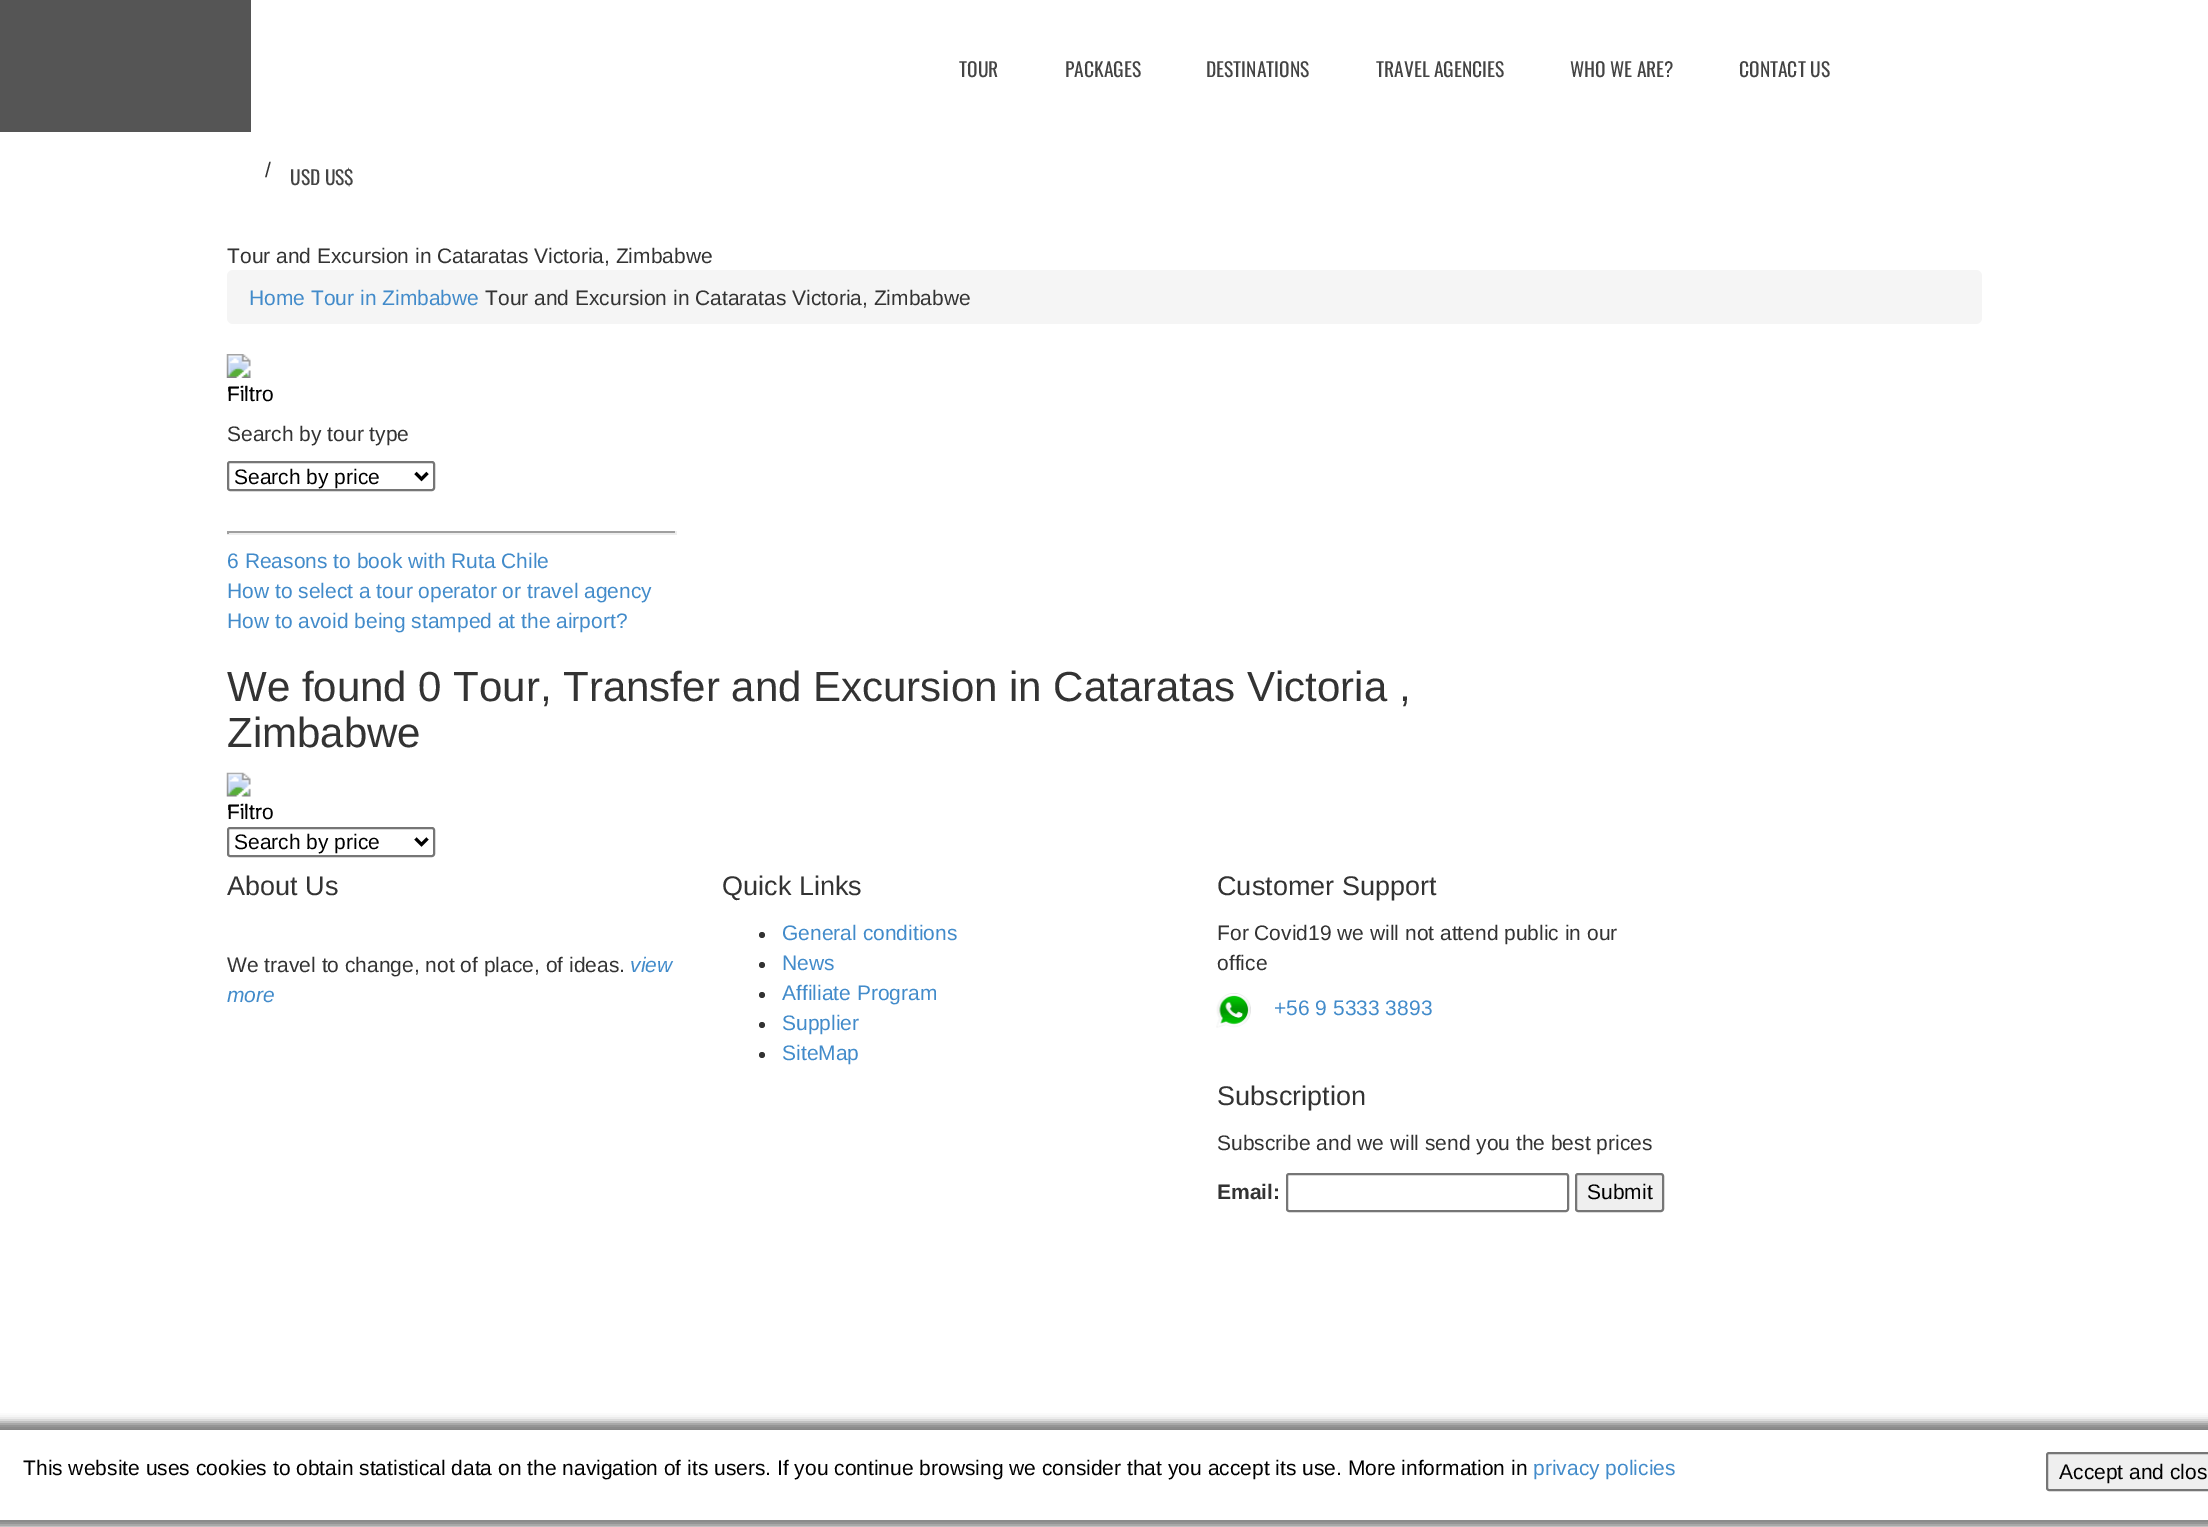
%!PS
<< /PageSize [2208 1527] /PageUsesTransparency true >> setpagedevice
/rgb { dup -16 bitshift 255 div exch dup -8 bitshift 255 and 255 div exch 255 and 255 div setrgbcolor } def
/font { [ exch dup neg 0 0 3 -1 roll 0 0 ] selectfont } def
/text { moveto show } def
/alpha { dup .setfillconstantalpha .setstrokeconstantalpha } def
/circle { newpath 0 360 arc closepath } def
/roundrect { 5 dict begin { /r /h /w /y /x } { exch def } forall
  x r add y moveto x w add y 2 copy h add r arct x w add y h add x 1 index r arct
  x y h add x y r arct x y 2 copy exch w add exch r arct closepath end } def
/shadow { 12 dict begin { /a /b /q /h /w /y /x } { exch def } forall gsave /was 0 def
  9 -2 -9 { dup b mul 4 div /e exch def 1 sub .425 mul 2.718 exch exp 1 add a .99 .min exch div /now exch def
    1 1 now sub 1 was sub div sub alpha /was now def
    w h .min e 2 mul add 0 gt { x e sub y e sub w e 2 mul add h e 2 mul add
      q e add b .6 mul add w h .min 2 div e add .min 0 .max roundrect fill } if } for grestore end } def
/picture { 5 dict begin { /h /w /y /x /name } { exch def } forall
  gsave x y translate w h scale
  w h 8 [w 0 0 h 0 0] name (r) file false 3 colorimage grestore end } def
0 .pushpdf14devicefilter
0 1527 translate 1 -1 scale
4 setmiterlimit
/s1 { /Oswald-Regular 19.5 font 16#444444 rgb } def
/s2 { /LiberationSans-Regular 21 font 16#333333 rgb } def
/s3 { /LiberationSans-Regular 21 font 16#428BCA rgb } def
/s4 { /LiberationSans-Regular 21 font 16#000000 rgb } def
/s5 { /LiberationSans-Regular 42 font 16#333333 rgb } def
/s6 { /LiberationSans-Regular 27 font 16#333333 rgb } def
/s7 { /LiberationSans-Italic 21 font 16#428BCA rgb } def
/s8 { /LiberationSans-Bold 21 font 16#333333 rgb } def
16#FFFFFF rgb
0 0 2208 1527 rectfill
16#555555 rgb
0 0 251 132 rectfill
s1
(TOUR) 959 77 text
(PACKAGES) 1065 77 text
(DESTINATIONS) 1206 77 text
(TRAVEL AGENCIES) 1376 77 text
(WHO WE ARE?) 1570 77 text
(CONTACT US) 1739 77 text
s2
(/) 265 177 text
s1
(USD US$) 290 185 text
s2
(Tour and Excursion in Cataratas Victoria, Zimbabwe) 227 263 text
16#F5F5F5 rgb
227 270 1755 54 6 roundrect fill
s3
(Home Tour in Zimbabwe) 249 305 text
s2
(Tour and Excursion in Cataratas Victoria, Zimbabwe) 485 305 text
(pic1.raw) 226 354 38 38 picture
s4
(Filtro) 227 401 text
s2
(Search by tour type) 227 441 text
16#767676 rgb
2 setlinewidth
228 462 206 28 2 roundrect stroke
16#000000 rgb
3 setlinewidth
415.5 473 moveto 421.5 479 lineto 427.5 473 lineto stroke
(Search by price) 234 484 text
16#9F9F9F rgb
227 531 450 2 rectfill
16#EEEEEE rgb
675 531 2 3 rectfill
227 533 450 2 rectfill
16#9F9F9F rgb
227 531 2 3 rectfill
s3
(6 Reasons to book with Ruta Chile) 227 568 text
(How to select a tour operator or travel agency) 227 598 text
(How to avoid being stamped at the airport?) 227 628 text
s5
(We found 0 Tour, Transfer and Excursion in Cataratas Victoria ,) 227 701 text
(Zimbabwe) 227 747 text
(pic2.raw) 226 772 38 38 picture
s4
(Filtro) 227 819 text
16#767676 rgb
2 setlinewidth
228 828 206 28 2 roundrect stroke
16#000000 rgb
3 setlinewidth
415.5 838.5 moveto 421.5 844.5 lineto 427.5 838.5 lineto stroke
(Search by price) 234 849 text
s6
(About Us) 227 895 text
s2
(We travel to change, not of place, of ideas.) 227 972 text
s7
(view) 630 972 text
(more) 227 1002 text
s6
(Quick Links) 722 895 text
762 935 3 circle fill
s3
(General conditions) 782 940 text
16#333333 rgb
762 965 3 circle fill
s3
(News) 782 970 text
16#333333 rgb
762 995 3 circle fill
s3
(Affiliate Program) 782 1000 text
16#333333 rgb
762 1025 3 circle fill
s3
(Supplier) 782 1030 text
16#333333 rgb
762 1055 3 circle fill
s3
(SiteMap) 782 1060 text
s6
(Customer Support) 1217 895 text
s2
(For Covid19 we will not attend public in our) 1217 940 text
(office) 1217 970 text
(pic3.raw) 1216 993 35 35 picture
s3
(+56 9 5333 3893) 1274 1015 text
s6
(Subscription) 1217 1105 text
s2
(Subscribe and we will send you the best prices) 1217 1150 text
s8
(Email:) 1217 1199 text
16#767676 rgb
2 setlinewidth
1287 1174 281 37 2 roundrect stroke
16#EFEFEF rgb
1576 1174 87 37 2 roundrect gsave fill grestore
16#767676 rgb
stroke
s4
(Submit) 1587 1199 text
16#808080 rgb
-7 1422 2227 105 0 4 1 shadow
16#FFFFFF rgb
0 1430 2208 90 rectfill
s4
(This website uses cookies to obtain statistical data on the navigation of its users. If you continue browsing we consider that you accept its use. More information in) 23 1475 text
s3
(privacy policies) 1533 1475 text
16#EFEFEF rgb
2047 1453 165 37 2 roundrect gsave fill grestore
16#767676 rgb
stroke
s4
(Accept and clos) 2059 1479 text
.poppdf14devicefilter showpage
